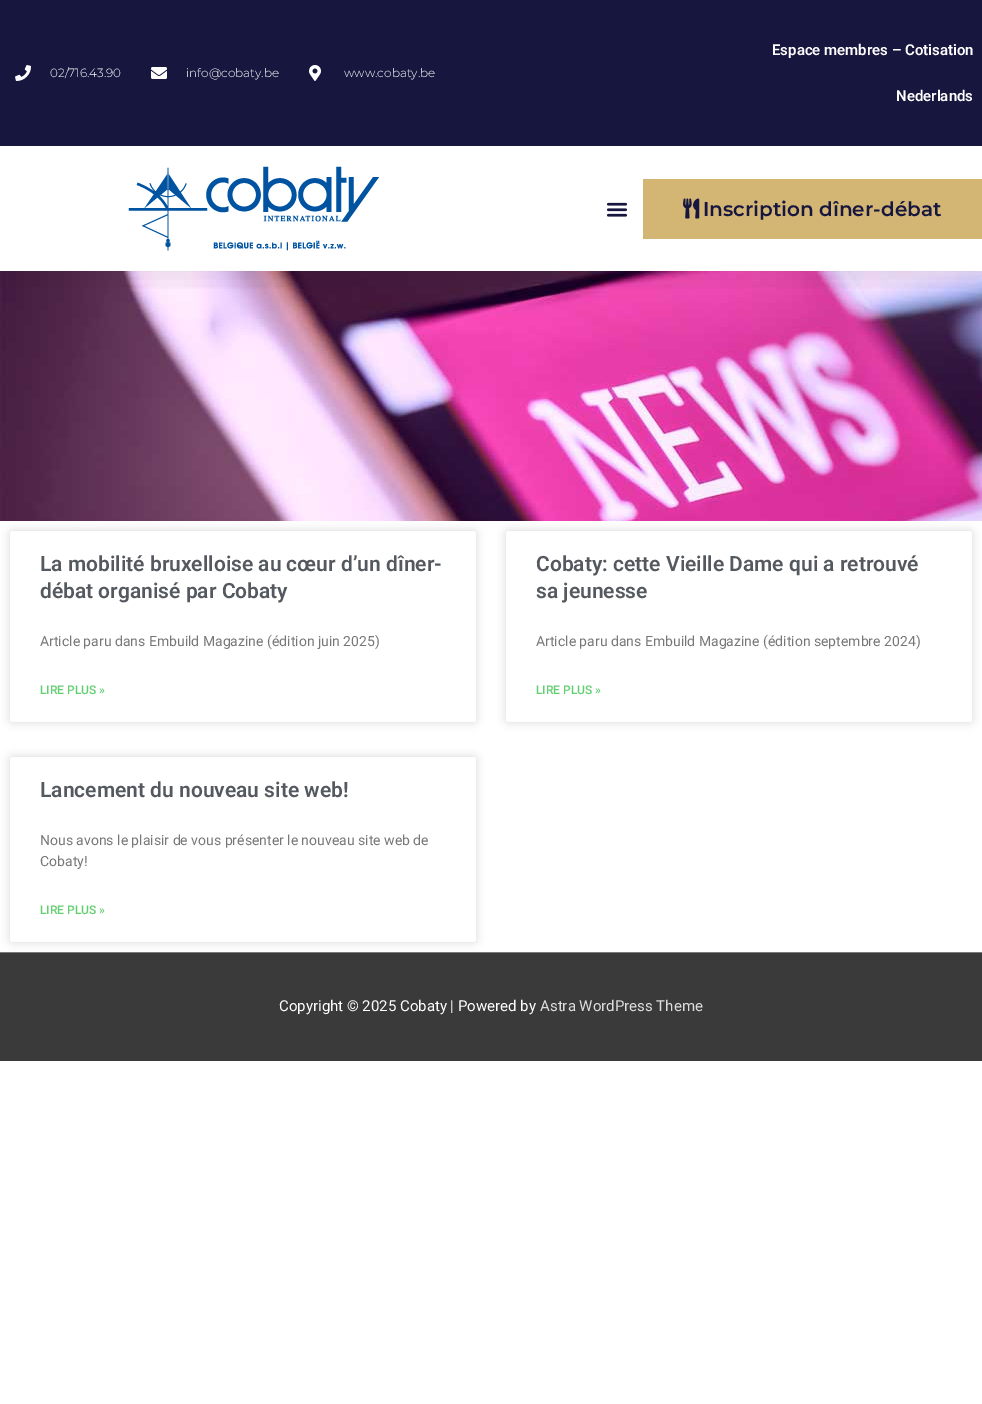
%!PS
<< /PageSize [982 1404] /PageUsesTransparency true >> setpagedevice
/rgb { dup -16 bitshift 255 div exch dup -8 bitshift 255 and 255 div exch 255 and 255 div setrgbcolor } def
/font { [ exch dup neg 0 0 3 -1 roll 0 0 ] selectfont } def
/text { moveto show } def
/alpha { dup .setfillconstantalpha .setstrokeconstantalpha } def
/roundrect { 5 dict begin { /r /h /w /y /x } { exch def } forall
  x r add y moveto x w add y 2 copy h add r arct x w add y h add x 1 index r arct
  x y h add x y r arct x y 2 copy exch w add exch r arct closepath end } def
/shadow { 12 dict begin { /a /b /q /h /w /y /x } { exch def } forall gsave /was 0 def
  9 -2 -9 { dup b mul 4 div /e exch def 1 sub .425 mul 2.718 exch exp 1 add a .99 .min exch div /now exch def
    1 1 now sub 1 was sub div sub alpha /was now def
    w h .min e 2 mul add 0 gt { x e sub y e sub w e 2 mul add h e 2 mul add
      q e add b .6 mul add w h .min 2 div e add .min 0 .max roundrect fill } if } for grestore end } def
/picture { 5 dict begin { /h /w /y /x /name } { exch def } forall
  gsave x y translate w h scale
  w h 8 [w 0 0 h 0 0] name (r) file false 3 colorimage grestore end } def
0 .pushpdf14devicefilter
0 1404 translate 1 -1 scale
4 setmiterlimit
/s1 { /Montserrat-Light 12 font 16#FFFFFF rgb } def
/s2 { /Roboto-SemiBold 15 font 16#FFFFFF rgb } def
/s3 { /Montserrat-SemiBold 20 font 16#16163F rgb } def
/s4 { /Roboto-SemiBold 21 font 16#54595F rgb } def
/s5 { /Roboto-Regular 14 font 16#777777 rgb } def
/s6 { /Roboto-Medium 12 font 16#61CE70 rgb } def
/s7 { /Roboto-Regular 15 font 16#FFFFFF rgb } def
/s8 { /Roboto-Regular 15 font 16#DDDDDD rgb } def
16#FFFFFF rgb
0 0 982 1404 rectfill
(pic7.raw) 0 271 982 250 picture
gsave
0 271 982 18 rectclip
16#000000 rgb
0 5 982 271 0 15 0.1 shadow
grestore
16#16163F rgb
0 0 982 146 rectfill
(pic1.raw) 15 65 16 16 picture
s1
(02/716.43.90) 50 77 text
(pic2.raw) 151 67 16 12 picture
(info@cobaty.be) 186 77 text
(pic3.raw) 309 65 12 16 picture
(www.cobaty.be) 344 77 text
s2
(Espace membres – Cotisation) 772 55 text
(Nederlands) 896 101 text
(pic4.raw) 128 166 251 85 picture
(pic5.raw) 606 202 22 15 picture
16#D3B574 rgb
643 179 339 60 rectfill
(pic6.raw) 683 198 17 21 picture
s3
(Inscription dîner-débat) 703 216 text
16#000000 rgb
10 531 466 191 3 5 0.15 shadow
16#FFFFFF rgb
10 531 466 191 3 roundrect fill
s4
(La mobilité bruxelloise au cœur d’un dîner-) 40 571 text
(débat organisé par Cobaty) 40 598 text
s5
(Article paru dans Embuild Magazine \(édition juin 2025\)) 40 646 text
s6
(LIRE PLUS ») 40 694 text
16#000000 rgb
506 531 466 191 3 5 0.15 shadow
16#FFFFFF rgb
506 531 466 191 3 roundrect fill
s4
(Cobaty: cette Vieille Dame qui a retrouvé) 536 571 text
(sa jeunesse) 536 598 text
s5
(Article paru dans Embuild Magazine \(édition septembre 2024\)) 536 646 text
s6
(LIRE PLUS ») 536 694 text
16#000000 rgb
10 757 466 185 3 5 0.15 shadow
16#FFFFFF rgb
10 757 466 185 3 roundrect fill
s4
(Lancement du nouveau site web!) 40 797 text
s5
(Nous avons le plaisir de vous présenter le nouveau site web de) 40 845 text
(Cobaty!) 40 866 text
s6
(LIRE PLUS ») 40 914 text
16#7A7A7A rgb
0 952 982 1 rectfill
16#3A3A3A rgb
0 953 982 108 rectfill
s7
(Copyright © 2025 Cobaty | Powered by) 279 1011 text
s8
(Astra WordPress Theme) 540 1011 text
.poppdf14devicefilter showpage
